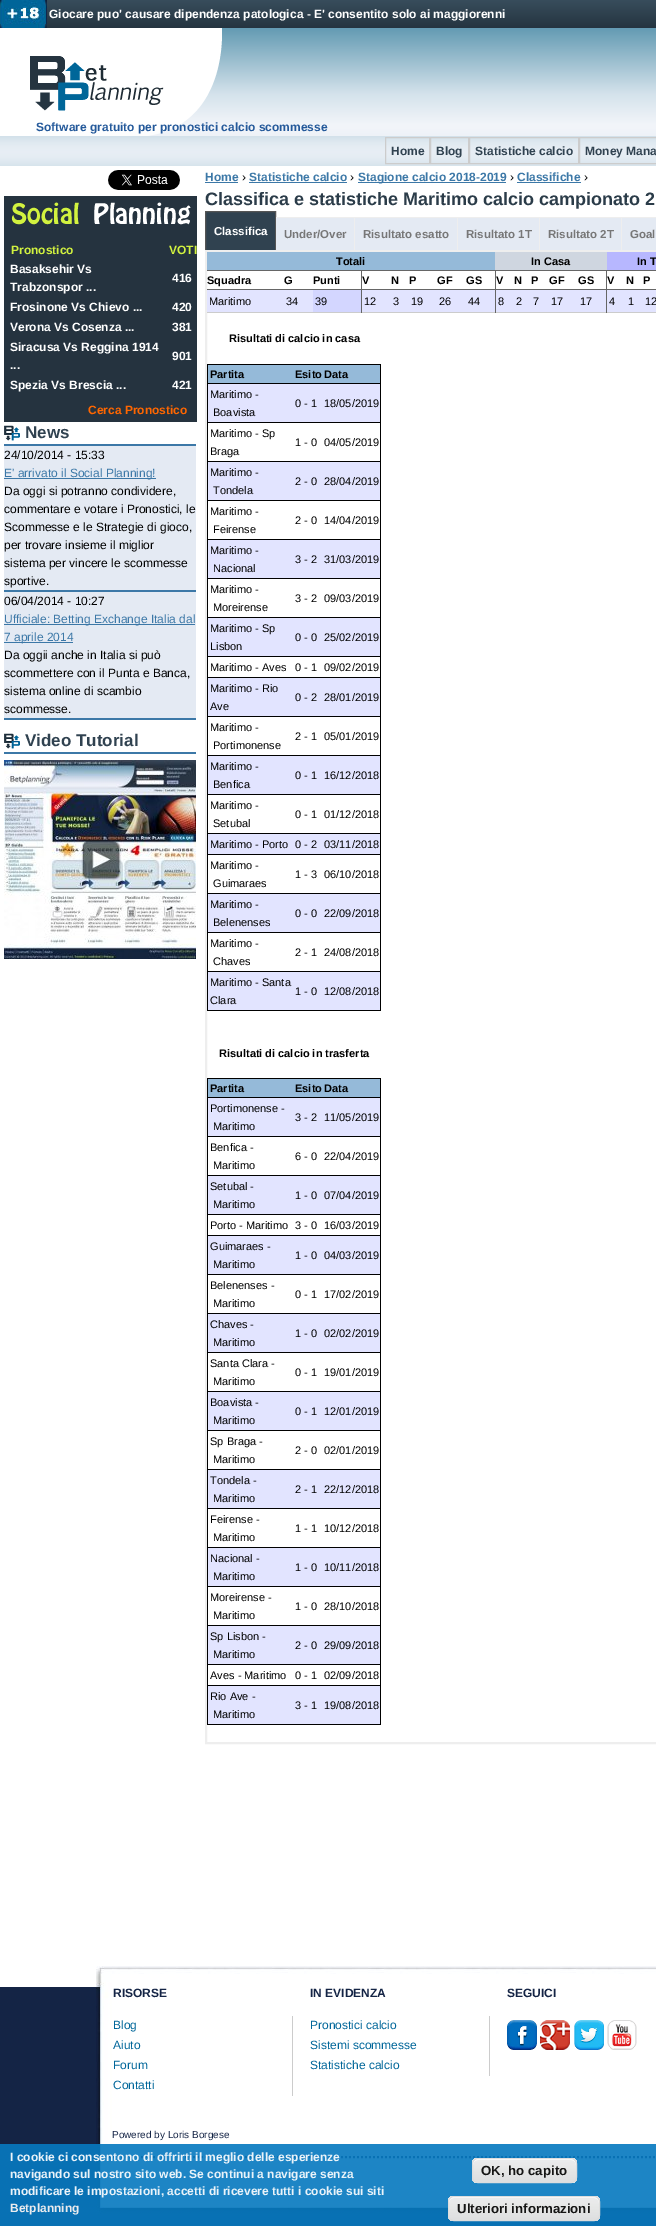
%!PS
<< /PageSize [656 2226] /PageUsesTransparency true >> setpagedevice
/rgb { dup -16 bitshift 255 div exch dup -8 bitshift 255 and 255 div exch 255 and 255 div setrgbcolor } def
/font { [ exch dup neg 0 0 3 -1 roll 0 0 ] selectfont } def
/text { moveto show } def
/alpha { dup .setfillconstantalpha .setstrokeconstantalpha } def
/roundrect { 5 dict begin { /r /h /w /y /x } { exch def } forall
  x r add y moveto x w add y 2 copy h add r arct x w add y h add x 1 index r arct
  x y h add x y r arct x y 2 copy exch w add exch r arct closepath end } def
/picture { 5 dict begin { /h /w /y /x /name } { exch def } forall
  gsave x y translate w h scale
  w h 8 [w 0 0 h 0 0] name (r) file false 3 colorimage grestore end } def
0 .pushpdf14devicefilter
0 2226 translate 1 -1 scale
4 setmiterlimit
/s1 { /LiberationSans-Bold 12 font 16#FFFFFF rgb } def
/s2 { /LiberationSans-Bold 12 font 16#24599A rgb } def
/s3 { /LiberationSans-Bold 12 font 16#304250 rgb } def
/s4 { /LiberationSans-Bold 12 font 16#D2F23F rgb } def
/s5 { /LiberationSans-Bold 12 font 16#FF6600 rgb } def
/s6 { /LiberationSans-Bold 17 font 16#304250 rgb } def
/s7 { /LiberationSans-Regular 12 font 16#000000 rgb } def
/s8 { /LiberationSans-Regular 12 font 16#3C78A7 rgb } def
/s9 { /LiberationSans-Bold 12 font 16#3C78A7 rgb } def
/s10 { /LiberationSans-Bold 18 font 16#2B3C49 rgb } def
/s11 { /LiberationSans-Bold 11.5 font 16#FFFFFF rgb } def
/s12 { /LiberationSans-Bold 11.5 font 16#777777 rgb } def
/s13 { /LiberationSans-Bold 11 font 16#000000 rgb } def
/s14 { /LiberationSans-Regular 11 font 16#000000 rgb } def
/s15 { /LiberationSans-Bold 12 font 16#142445 rgb } def
/s16 { /LiberationSans-Regular 12 font 16#006699 rgb } def
/s17 { /LiberationSans-Regular 10 font 16#142445 rgb } def
/s18 { /LiberationSans-Bold 12 font 16#EAF3F9 rgb } def
/s19 { /LiberationSans-Bold 12 font 16#EAEBEE rgb } def
/s20 { /LiberationSans-Bold 13.25 font 16#151515 rgb } def
16#FFFFFF rgb
0 0 656 2226 rectfill
(pic1.raw) 47 0 609 28 picture
(pic2.raw) 0 0 47 28 picture
s1
(Giocare puo' causare dipendenza patologica - E' consentito solo ai maggiorenni) 49 18 text
(pic3.raw) 224 28 432 108 picture
(pic4.raw) 30 28 194 108 picture
s2
(Software gratuito per pronostici calcio scommesse) 36 131 text
(pic5.raw) 0 136 656 30 picture
16#CCCCCC rgb
385.5 137.5 44 26 rectstroke
s3
(Home) 391 155 text
16#CCCCCC rgb
430.5 137.5 38 26 rectstroke
s3
(Blog) 436 155 text
16#CCCCCC rgb
469.5 137.5 109 26 rectstroke
s3
(Statistiche calcio) 475 155 text
16#CCCCCC rgb
579.5 137.5 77 26 rectstroke
s3
(Money Mana) 585 155 text
(pic6.raw) 108 170 72 20 picture
16#25333F rgb
4 196 193 226 rectfill
(pic7.raw) 11 202 180 23 picture
s4
(Pronostico) 11 254 text
(VOTI) 169 254 text
s1
(Basaksehir Vs) 10 273 text
(Trabzonspor ...) 10 291 text
(416) 172 282 text
(Frosinone Vs Chievo ...) 10 311 text
(420) 172 311 text
(Verona Vs Cosenza ...) 10 331 text
(381) 172 331 text
(Siracusa Vs Reggina 1914) 10 351 text
(...) 10 369 text
(901) 172 360 text
(Spezia Vs Brescia ...) 10 389 text
(421) 172 389 text
s5
(Cerca Pronostico) 88 414 text
(pic8.raw) 4 425 16 16 picture
16#3C78A7 rgb
4 444 192 2 rectfill
s6
(News) 25 438 text
16#E4EAF3 rgb
4 446 192 272 rectfill
16#3C78A7 rgb
4 590 192 2 rectfill
s7
(24/10/2014 - 15:33) 4 459 text
16#3C78A7 rgb
4 478 152 1 rectfill
(E' arrivato il Social Planning!) 4 477 text
s7
(Da oggi si potranno condividere,) 4 495 text
(commentare e votare i Pronostici, le) 4 513 text
(Scommesse e le Strategie di gioco,) 4 531 text
(per trovare insieme il miglior) 4 549 text
(sistema per vincere le scommesse) 4 567 text
(sportive.) 4 585 text
16#3C78A7 rgb
4 718 192 2 rectfill
s7
(06/04/2014 - 10:27) 4 605 text
16#3C78A7 rgb
4 624 191 1 rectfill
(Ufficiale: Betting Exchange Italia dal) 4 623 text
4 642 69 1 rectfill
(7 aprile 2014) 4 641 text
s7
(Da oggii anche in Italia si può) 4 659 text
(scommettere con il Punta e Banca,) 4 677 text
(sistema online di scambio) 4 695 text
(scommesse.) 4 713 text
(pic8.raw) 4 733 16 16 picture
16#3C78A7 rgb
4 752 192 2 rectfill
s6
(Video Tutorial) 25 746 text
(pic9.raw) 4 760 192 199 picture
s9
(Home) 205 181 text
205 182 33 1 rectfill
s7
(›) 242 181 text
s9
(Statistiche calcio) 249 181 text
249 182 98 1 rectfill
s7
(›) 350 181 text
16#3C78A7 rgb
358 182 148 1 rectfill
s9
(Stagione calcio 2018-2019) 358 181 text
s7
(›) 510 181 text
s9
(Classifiche) 517 181 text
517 182 64 1 rectfill
s7
(›) 584 181 text
s10
(Classifica e statistiche Maritimo calcio campionato 2) 205 205 text
16#304250 rgb
205.5 211.5 moveto 275.5 211.5 lineto 275.5 250.5 lineto 205.5 250.5 lineto closepath gsave fill grestore
16#555555 rgb
stroke
s11
(Classifica) 214 235 text
16#E4EAF3 rgb
276 218 78 32 rectfill
16#EEEEEE rgb
276 217 380 1 rectfill
354 217 1 34 rectfill
s12
(Under/Over) 284 238 text
16#E4EAF3 rgb
355 218 102 32 rectfill
16#EEEEEE rgb
457 217 1 34 rectfill
s12
(Risultato esatto) 363 238 text
16#E4EAF3 rgb
458 218 81 32 rectfill
16#EEEEEE rgb
539 217 1 34 rectfill
s12
(Risultato 1T) 466 238 text
16#E4EAF3 rgb
540 218 81 32 rectfill
16#EEEEEE rgb
621 217 1 34 rectfill
s12
(Risultato 2T) 548 238 text
16#E4EAF3 rgb
622 218 34 32 rectfill
s12
(Goal) 630 238 text
16#EEEEEE rgb
2 setlinewidth
206 251 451 1492 rectstroke
16#95BAD9 rgb
207 252 288 18 rectfill
s13
(Totali) 336 265 text
16#CFD6E0 rgb
495 252 112 18 rectfill
s13
(In Casa) 531 265 text
16#B7B7FF rgb
607 252 49 18 rectfill
16#E2E4FF rgb
207 290 449 22 rectfill
16#CCCCCC rgb
207 312 449 1 rectfill
16#666666 rgb
606 289 1 24 rectfill
606 289 50 1 rectfill
606 270 1 20 rectfill
495 289 1 24 rectfill
495 289 112 1 rectfill
495 270 1 20 rectfill
361 289 1 24 rectfill
361 289 135 1 rectfill
361 270 1 20 rectfill
207 270 449 1 rectfill
s13
(In T) 637 265 text
(Squadra) 207 284 text
(G) 284 284 text
16#666666 rgb
207 289 155 1 rectfill
s13
(Punti) 313 284 text
(V) 362 284 text
(N) 391 284 text
(P) 409 284 text
(GF) 437 284 text
(GS) 466 284 text
(V) 496 284 text
(N) 514 284 text
(P) 531 284 text
(GF) 549 284 text
(GS) 578 284 text
(V) 607 284 text
(N) 626 284 text
(P) 643 284 text
s14
(Maritimo) 209 305 text
(34) 286 305 text
16#D3D6FF rgb
313 290 48 22 rectfill
s14
(39) 315 305 text
(12) 364 305 text
(3) 393 305 text
(19) 411 305 text
(26) 439 305 text
(44) 468 305 text
(8) 498 305 text
(2) 516 305 text
(7) 533 305 text
(17) 551 305 text
(17) 580 305 text
(4) 609 305 text
(1) 628 305 text
(12) 645 305 text
s13
(Risultati di calcio in casa) 229 342 text
207 364 174 1 rectfill
380 364 1 647 rectfill
207 1010 174 1 rectfill
207 364 1 647 rectfill
16#95BAD9 rgb
208 365 172 18 rectfill
16#000000 rgb
207 383 174 1 rectfill
(Partita) 210 378 text
(Esito) 295 378 text
(Data) 324 378 text
16#E2E4FF rgb
208 384 172 38 rectfill
16#000000 rgb
207 422 174 1 rectfill
s14
(Maritimo -) 210 398 text
(Boavista) 213 416 text
(0 - 1) 295 407 text
(18/05/2019) 324 407 text
207 461 174 1 rectfill
(Maritimo - Sp) 210 437 text
(Braga) 210 455 text
(1 - 0) 295 446 text
(04/05/2019) 324 446 text
16#E2E4FF rgb
208 462 172 38 rectfill
16#000000 rgb
207 500 174 1 rectfill
(Maritimo -) 210 476 text
(Tondela) 213 494 text
(2 - 0) 295 485 text
(28/04/2019) 324 485 text
207 539 174 1 rectfill
(Maritimo -) 210 515 text
(Feirense) 213 533 text
(2 - 0) 295 524 text
(14/04/2019) 324 524 text
16#E2E4FF rgb
208 540 172 38 rectfill
16#000000 rgb
207 578 174 1 rectfill
(Maritimo -) 210 554 text
(Nacional) 213 572 text
(3 - 2) 295 563 text
(31/03/2019) 324 563 text
207 617 174 1 rectfill
(Maritimo -) 210 593 text
(Moreirense) 213 611 text
(3 - 2) 295 602 text
(09/03/2019) 324 602 text
16#E2E4FF rgb
208 618 172 38 rectfill
16#000000 rgb
207 656 174 1 rectfill
(Maritimo - Sp) 210 632 text
(Lisbon) 210 650 text
(0 - 0) 295 641 text
(25/02/2019) 324 641 text
207 677 174 1 rectfill
(Maritimo - Aves) 210 671 text
(0 - 1) 295 671 text
(09/02/2019) 324 671 text
16#E2E4FF rgb
208 678 172 38 rectfill
16#000000 rgb
207 716 174 1 rectfill
(Maritimo - Rio) 210 692 text
(Ave) 210 710 text
(0 - 2) 295 701 text
(28/01/2019) 324 701 text
207 755 174 1 rectfill
(Maritimo -) 210 731 text
(Portimonense) 213 749 text
(2 - 1) 295 740 text
(05/01/2019) 324 740 text
16#E2E4FF rgb
208 756 172 38 rectfill
16#000000 rgb
207 794 174 1 rectfill
(Maritimo -) 210 770 text
(Benfica) 213 788 text
(0 - 1) 295 779 text
(16/12/2018) 324 779 text
207 833 174 1 rectfill
(Maritimo -) 210 809 text
(Setubal) 213 827 text
(0 - 1) 295 818 text
(01/12/2018) 324 818 text
16#E2E4FF rgb
208 834 172 20 rectfill
16#000000 rgb
207 854 174 1 rectfill
(Maritimo - Porto) 210 848 text
(0 - 2) 295 848 text
(03/11/2018) 324 848 text
207 893 174 1 rectfill
(Maritimo -) 210 869 text
(Guimaraes) 213 887 text
(1 - 3) 295 878 text
(06/10/2018) 324 878 text
16#E2E4FF rgb
208 894 172 38 rectfill
16#000000 rgb
207 932 174 1 rectfill
(Maritimo -) 210 908 text
(Belenenses) 213 926 text
(0 - 0) 295 917 text
(22/09/2018) 324 917 text
207 971 174 1 rectfill
(Maritimo -) 210 947 text
(Chaves) 213 965 text
(2 - 1) 295 956 text
(24/08/2018) 324 956 text
16#E2E4FF rgb
208 972 172 38 rectfill
s14
(Maritimo - Santa) 210 986 text
(Clara) 210 1004 text
(1 - 0) 295 995 text
(12/08/2018) 324 995 text
s13
(Risultati di calcio in trasferta) 219 1057 text
207 1078 174 1 rectfill
380 1078 1 647 rectfill
207 1724 174 1 rectfill
207 1078 1 647 rectfill
16#95BAD9 rgb
208 1079 172 18 rectfill
16#000000 rgb
207 1097 174 1 rectfill
(Partita) 210 1092 text
(Esito) 295 1092 text
(Data) 324 1092 text
16#E2E4FF rgb
208 1098 172 38 rectfill
16#000000 rgb
207 1136 174 1 rectfill
s14
(Portimonense -) 210 1112 text
(Maritimo) 213 1130 text
(3 - 2) 295 1121 text
(11/05/2019) 324 1121 text
207 1175 174 1 rectfill
(Benfica -) 210 1151 text
(Maritimo) 213 1169 text
(6 - 0) 295 1160 text
(22/04/2019) 324 1160 text
16#E2E4FF rgb
208 1176 172 38 rectfill
16#000000 rgb
207 1214 174 1 rectfill
(Setubal -) 210 1190 text
(Maritimo) 213 1208 text
(1 - 0) 295 1199 text
(07/04/2019) 324 1199 text
207 1235 174 1 rectfill
(Porto - Maritimo) 210 1229 text
(3 - 0) 295 1229 text
(16/03/2019) 324 1229 text
16#E2E4FF rgb
208 1236 172 38 rectfill
16#000000 rgb
207 1274 174 1 rectfill
(Guimaraes -) 210 1250 text
(Maritimo) 213 1268 text
(1 - 0) 295 1259 text
(04/03/2019) 324 1259 text
207 1313 174 1 rectfill
(Belenenses -) 210 1289 text
(Maritimo) 213 1307 text
(0 - 1) 295 1298 text
(17/02/2019) 324 1298 text
16#E2E4FF rgb
208 1314 172 38 rectfill
16#000000 rgb
207 1352 174 1 rectfill
(Chaves -) 210 1328 text
(Maritimo) 213 1346 text
(1 - 0) 295 1337 text
(02/02/2019) 324 1337 text
207 1391 174 1 rectfill
(Santa Clara -) 210 1367 text
(Maritimo) 213 1385 text
(0 - 1) 295 1376 text
(19/01/2019) 324 1376 text
16#E2E4FF rgb
208 1392 172 38 rectfill
16#000000 rgb
207 1430 174 1 rectfill
(Boavista -) 210 1406 text
(Maritimo) 213 1424 text
(0 - 1) 295 1415 text
(12/01/2019) 324 1415 text
207 1469 174 1 rectfill
(Sp Braga -) 210 1445 text
(Maritimo) 213 1463 text
(2 - 0) 295 1454 text
(02/01/2019) 324 1454 text
16#E2E4FF rgb
208 1470 172 38 rectfill
16#000000 rgb
207 1508 174 1 rectfill
(Tondela -) 210 1484 text
(Maritimo) 213 1502 text
(2 - 1) 295 1493 text
(22/12/2018) 324 1493 text
207 1547 174 1 rectfill
(Feirense -) 210 1523 text
(Maritimo) 213 1541 text
(1 - 1) 295 1532 text
(10/12/2018) 324 1532 text
16#E2E4FF rgb
208 1548 172 38 rectfill
16#000000 rgb
207 1586 174 1 rectfill
(Nacional -) 210 1562 text
(Maritimo) 213 1580 text
(1 - 0) 295 1571 text
(10/11/2018) 324 1571 text
207 1625 174 1 rectfill
(Moreirense -) 210 1601 text
(Maritimo) 213 1619 text
(1 - 0) 295 1610 text
(28/10/2018) 324 1610 text
16#E2E4FF rgb
208 1626 172 38 rectfill
16#000000 rgb
207 1664 174 1 rectfill
(Sp Lisbon -) 210 1640 text
(Maritimo) 213 1658 text
(2 - 0) 295 1649 text
(29/09/2018) 324 1649 text
207 1685 174 1 rectfill
(Aves - Maritimo) 210 1679 text
(0 - 1) 295 1679 text
(02/09/2018) 324 1679 text
16#E2E4FF rgb
208 1686 172 38 rectfill
s14
(Rio Ave -) 210 1700 text
(Maritimo) 213 1718 text
(3 - 1) 295 1709 text
(19/08/2018) 324 1709 text
16#142445 rgb
0 1987 656 239 rectfill
(pic10.raw) 96 1966 560 248 picture
s15
(RISORSE) 113 1997 text
16#CCCCCC rgb
292 2016 1 80 rectfill
s16
(Blog) 113 2029 text
(Aiuto) 113 2049 text
(Forum) 113 2069 text
(Contatti) 113 2089 text
s15
(IN EVIDENZA) 310 1997 text
16#CCCCCC rgb
489 2016 1 60 rectfill
s16
(Pronostici calcio) 310 2029 text
(Sistemi scommesse) 310 2049 text
(Statistiche calcio) 310 2069 text
s15
(SEGUICI) 507 1997 text
(pic11.raw) 507 2020 30 30 picture
(pic12.raw) 540 2020 30 30 picture
(pic13.raw) 574 2020 30 30 picture
(pic14.raw) 607 2020 30 30 picture
[2 2] 0 setdash
109 2157 moveto 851 2157 lineto stroke
s17
(Powered by Loris Borgese) 112 2138 text
0.91 alpha
16#0779BF rgb
0 2144 656 82 rectfill
1 alpha
s18
(I cookie ci consentono di offrirti il meglio delle esperienze) 10 2161 text
(navigando sul nostro sito web. Se continui a navigare senza) 10 2178 text
(modificare le impostazioni, accetti di ricevere tutti i cookie sui siti) 10 2195 text
s19
(Betplanning) 10 2212 text
0.91 alpha
16#EDEDED rgb
472 2158 105 25 6 roundrect fill
gsave
472 2158 105 25 6 roundrect clip newpath
1 alpha
gsave 472 2158 moveto 577 2158 lineto 577 2159 lineto 472 2159 lineto closepath clip newpath
<< /ShadingType 2 /ColorSpace /DeviceRGB /Coords [473 2136 473 2159] /Extend [true true] /Function << /FunctionType 3 /Domain [0 1] /Functions [<< /FunctionType 2 /Domain [0 1] /C0 [0.937 0.937 0.937] /C1 [0.937 0.937 0.937] /N 1 >> << /FunctionType 2 /Domain [0 1] /C0 [0.937 0.937 0.937] /C1 [0.886 0.886 0.886] /N 1 >>] /Bounds [0.05] /Encode [0 1 0 1] >> >> shfill grestore
0.91 alpha
gsave 472 2159 moveto 577 2159 lineto 577 2182 lineto 472 2182 lineto closepath clip newpath
<< /ShadingType 2 /ColorSpace /DeviceRGB /Coords [473 2159 473 2182] /Extend [true true] /Function << /FunctionType 3 /Domain [0 1] /Functions [<< /FunctionType 2 /Domain [0 1] /C0 [0.929 0.929 0.929] /C1 [0.929 0.929 0.929] /N 1 >> << /FunctionType 2 /Domain [0 1] /C0 [0.929 0.929 0.929] /C1 [0.875 0.875 0.875] /N 1 >>] /Bounds [0.05] /Encode [0 1 0 1] >> >> shfill grestore
gsave 472 2182 moveto 577 2182 lineto 577 2183 lineto 472 2183 lineto closepath clip newpath
<< /ShadingType 2 /ColorSpace /DeviceRGB /Coords [473 2182 473 2205] /Extend [true true] /Function << /FunctionType 3 /Domain [0 1] /Functions [<< /FunctionType 2 /Domain [0 1] /C0 [0.929 0.929 0.929] /C1 [0.929 0.929 0.929] /N 1 >> << /FunctionType 2 /Domain [0 1] /C0 [0.929 0.929 0.929] /C1 [0.875 0.875 0.875] /N 1 >>] /Bounds [0.05] /Encode [0 1 0 1] >> >> shfill grestore
grestore
1 alpha
16#FFFFFF rgb
478 2160 moveto 571 2160 lineto 574 2160 576 2162 576 2165 curveto 576 2155 561 2159 556 2159 curveto 494 2159 lineto 488 2159 473 2155 473 2165 curveto 473 2162 475 2160 478 2160 curveto closepath fill
0.91 alpha
16#DCDCDC rgb
1 setlinewidth
[] 0 setdash
472.5 2158.5 104 24 5.5 roundrect stroke
1 alpha
s20
(OK, ho capito) 481 2175 text
0.91 alpha
16#EDEDED rgb
448 2196 152 25 6 roundrect fill
gsave
448 2196 152 25 6 roundrect clip newpath
1 alpha
gsave 448 2196 moveto 600 2196 lineto 600 2197 lineto 448 2197 lineto closepath clip newpath
<< /ShadingType 2 /ColorSpace /DeviceRGB /Coords [449 2174 449 2197] /Extend [true true] /Function << /FunctionType 3 /Domain [0 1] /Functions [<< /FunctionType 2 /Domain [0 1] /C0 [0.937 0.937 0.937] /C1 [0.937 0.937 0.937] /N 1 >> << /FunctionType 2 /Domain [0 1] /C0 [0.937 0.937 0.937] /C1 [0.886 0.886 0.886] /N 1 >>] /Bounds [0.05] /Encode [0 1 0 1] >> >> shfill grestore
0.91 alpha
gsave 448 2197 moveto 600 2197 lineto 600 2220 lineto 448 2220 lineto closepath clip newpath
<< /ShadingType 2 /ColorSpace /DeviceRGB /Coords [449 2197 449 2220] /Extend [true true] /Function << /FunctionType 3 /Domain [0 1] /Functions [<< /FunctionType 2 /Domain [0 1] /C0 [0.929 0.929 0.929] /C1 [0.929 0.929 0.929] /N 1 >> << /FunctionType 2 /Domain [0 1] /C0 [0.929 0.929 0.929] /C1 [0.875 0.875 0.875] /N 1 >>] /Bounds [0.05] /Encode [0 1 0 1] >> >> shfill grestore
1 alpha
gsave 448 2220 moveto 600 2220 lineto 600 2221 lineto 448 2221 lineto closepath clip newpath
<< /ShadingType 2 /ColorSpace /DeviceRGB /Coords [449 2220 449 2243] /Extend [true true] /Function << /FunctionType 3 /Domain [0 1] /Functions [<< /FunctionType 2 /Domain [0 1] /C0 [0.851 0.859 0.871] /C1 [0.851 0.859 0.871] /N 1 >> << /FunctionType 2 /Domain [0 1] /C0 [0.851 0.859 0.871] /C1 [0.804 0.808 0.82] /N 1 >>] /Bounds [0.05] /Encode [0 1 0 1] >> >> shfill grestore
grestore
1 alpha
16#FFFFFF rgb
454 2198 moveto 594 2198 lineto 597 2198 599 2200 599 2203 curveto 599 2202 lineto 599 2199 597 2197 594 2197 curveto 454 2197 lineto 451 2197 449 2199 449 2202 curveto 449 2203 lineto 449 2200 451 2198 454 2198 curveto closepath fill
0.91 alpha
16#DCDCDC rgb
448.5 2196.5 151 24 5.5 roundrect stroke
1 alpha
s20
(Ulteriori informazioni) 457 2213 text
.poppdf14devicefilter showpage
